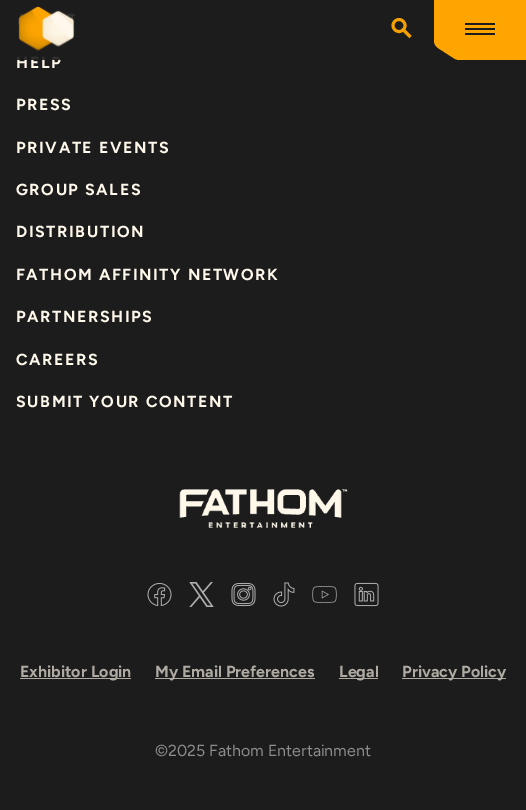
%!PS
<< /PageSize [526 810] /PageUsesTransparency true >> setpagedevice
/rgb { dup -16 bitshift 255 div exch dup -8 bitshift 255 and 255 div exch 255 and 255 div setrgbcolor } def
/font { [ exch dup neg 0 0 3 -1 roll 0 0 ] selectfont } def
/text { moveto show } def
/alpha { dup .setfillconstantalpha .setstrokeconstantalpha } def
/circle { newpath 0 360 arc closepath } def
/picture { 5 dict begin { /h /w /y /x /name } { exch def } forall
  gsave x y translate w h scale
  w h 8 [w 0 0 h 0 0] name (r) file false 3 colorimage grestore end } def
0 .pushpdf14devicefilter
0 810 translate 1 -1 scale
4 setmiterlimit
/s1 { /Figtree-Bold 16 font 16#AFABA3 rgb } def
/s2 { /Figtree-Regular 16 font 16#8D8D8D rgb } def
16#1C1C1C rgb
0 0 526 810 rectfill
/Figtree-Bold 16 font
16#FEF8EB rgb
16 68 moveto 1.6 0 (HELP) ashow
0.9 alpha
16#1C1C1C rgb
17 56 44 4 rectfill
1 alpha
(pic1.raw) 18 6 57 45 picture
16#F4A000 rgb
2.9 setlinewidth
399 25.5 6 circle stroke
404 30.5 moveto 410.5 37 lineto stroke
16#FEA501 rgb
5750 -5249 moveto 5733 -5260 lineto 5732 -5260 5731 -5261 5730 -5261 curveto 458 -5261 lineto 457 -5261 456 -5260 455 -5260 curveto 438 -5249 lineto 435 -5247 434 -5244 434 -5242 curveto 434 41 lineto 434 43 435 46 438 48 curveto 455 59 lineto 456 59 457 60 458 60 curveto 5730 60 lineto 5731 60 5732 59 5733 59 curveto 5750 48 lineto 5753 46 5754 43 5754 41 curveto 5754 -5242 lineto 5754 -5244 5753 -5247 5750 -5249 curveto closepath fill
16#1C1C1C rgb
465 23 30 2 rectfill
465 28 30 2 rectfill
465 33 30 2 rectfill
16#FEF8EB rgb
16 110 moveto 1.6 0 (PRESS) ashow
16 153 moveto 1.6 0 (PRIVATE EVENTS) ashow
16 195 moveto 1.6 0 (GROUP SALES) ashow
16 237 moveto 1.6 0 (DISTRIBUTION) ashow
16 280 moveto 1.6 0 (FATHOM AFFINITY NETWORK) ashow
16 322 moveto 1.6 0 (PARTNERSHIPS) ashow
16 365 moveto 1.6 0 (CAREERS) ashow
16 407 moveto 1.6 0 (SUBMIT YOUR CONTENT) ashow
(pic2.raw) 179 489 169 39 picture
(pic3.raw) 147 582 25 24 picture
(pic4.raw) 189 582 25 25 picture
(pic5.raw) 231 582 25 25 picture
(pic6.raw) 273 582 22 25 picture
(pic7.raw) 312 586 25 17 picture
(pic8.raw) 354 582 25 25 picture
16#AFABA3 rgb
20 678 111 1 rectfill
(Exhibitor Login) 20 677 text
155 678 160 1 rectfill
(My Email Preferences) 155 677 text
339 678 39 1 rectfill
(Legal) 339 677 text
402 678 104 1 rectfill
(Privacy Policy) 402 677 text
s2
(©2025 Fathom Entertainment) 155 756 text
.poppdf14devicefilter showpage
